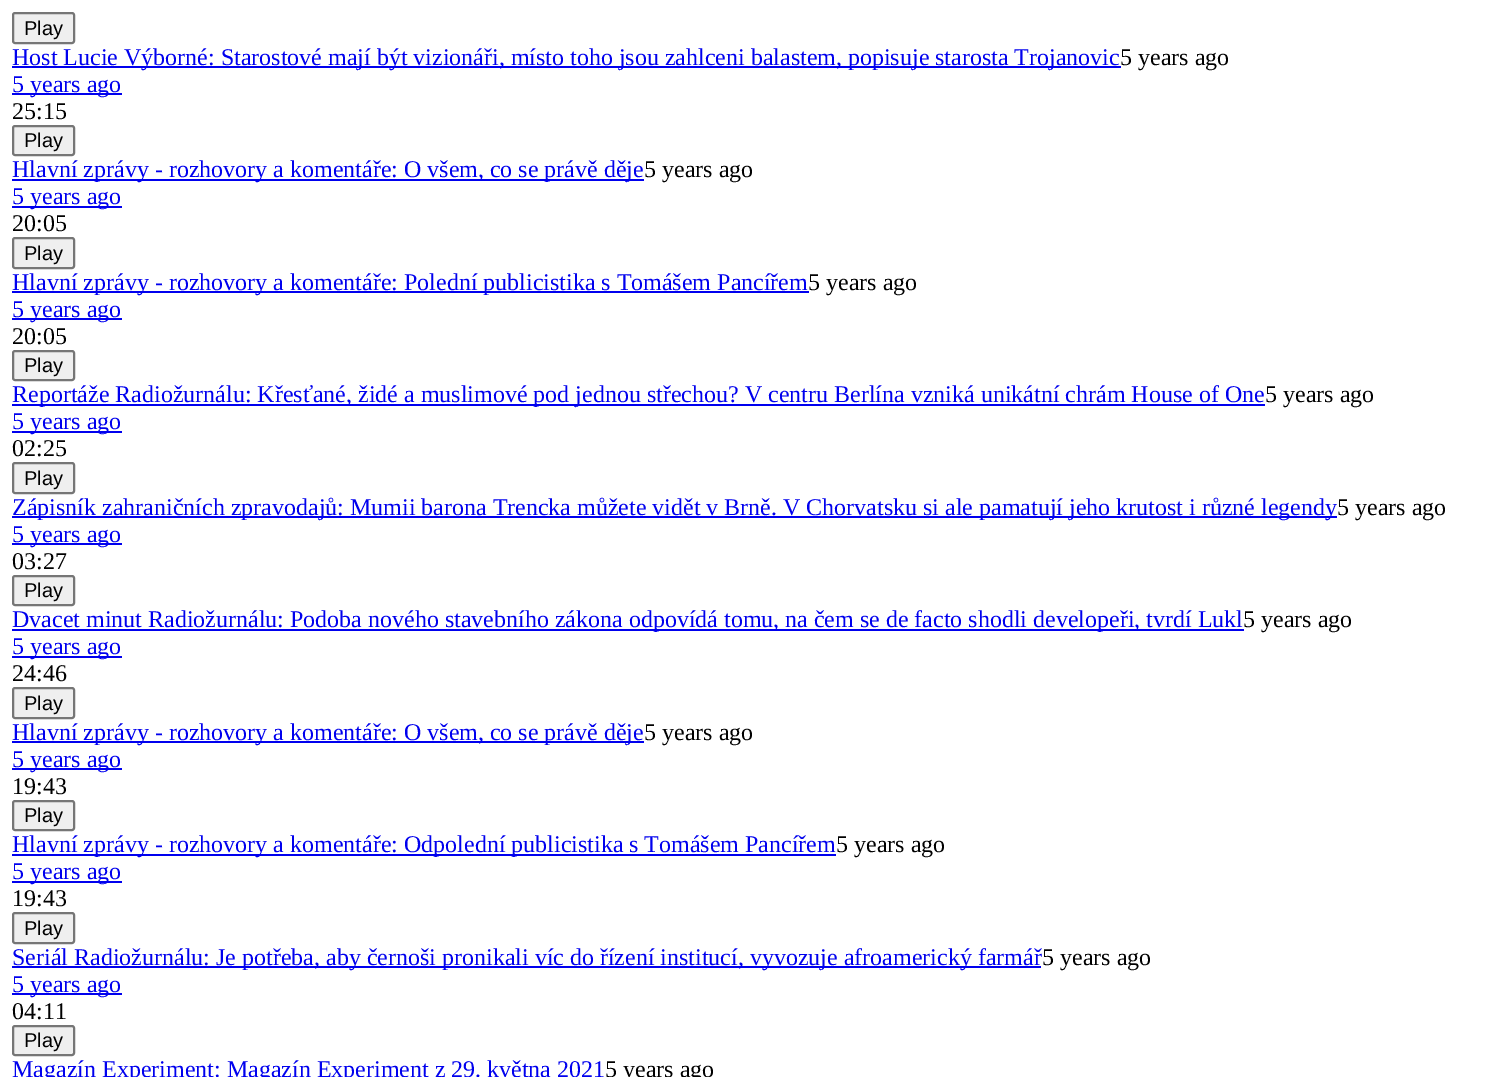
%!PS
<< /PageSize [1503 1077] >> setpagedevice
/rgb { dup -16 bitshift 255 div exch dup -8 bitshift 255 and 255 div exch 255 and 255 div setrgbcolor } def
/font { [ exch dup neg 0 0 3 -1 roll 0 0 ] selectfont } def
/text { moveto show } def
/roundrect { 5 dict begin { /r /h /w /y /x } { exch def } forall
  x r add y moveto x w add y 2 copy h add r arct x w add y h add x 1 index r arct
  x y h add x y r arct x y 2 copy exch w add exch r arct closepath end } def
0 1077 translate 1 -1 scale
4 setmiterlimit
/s1 { /LiberationSans-Regular 20 font 16#000000 rgb } def
/s2 { /LiberationSerif-Regular 24 font 16#0000EE rgb } def
/s3 { /LiberationSerif-Regular 24 font 16#000000 rgb } def
16#FFFFFF rgb
0 0 1503 1077 rectfill
16#EFEFEF rgb
13 13 61 30 2 roundrect gsave fill grestore
16#767676 rgb
2 setlinewidth
stroke
s1
(Play) 24 35 text
16#0000EE rgb
12 66 1109 2 rectfill
s2
(Host Lucie Výborné: Starostové mají být vizionáři, místo toho jsou zahlceni balastem, popisuje starosta Trojanovic) 12 65 text
s3
(5 years ago) 1120 65 text
16#0000EE rgb
12 93 110 2 rectfill
(5 years ago) 12 92 text
s3
(25:15) 12 119 text
16#EFEFEF rgb
13 126 61 29 2 roundrect gsave fill grestore
16#767676 rgb
stroke
s1
(Play) 24 147 text
16#0000EE rgb
12 179 632 2 rectfill
s2
(Hlavní zprávy - rozhovory a komentáře: O všem, co se právě děje) 12 177 text
s3
(5 years ago) 644 177 text
16#0000EE rgb
12 206 110 2 rectfill
(5 years ago) 12 204 text
s3
(20:05) 12 231 text
16#EFEFEF rgb
13 238 61 30 2 roundrect gsave fill grestore
16#767676 rgb
stroke
s1
(Play) 24 260 text
16#0000EE rgb
12 291 797 2 rectfill
s2
(Hlavní zprávy - rozhovory a komentáře: Polední publicistika s Tomášem Pancířem) 12 290 text
s3
(5 years ago) 808 290 text
16#0000EE rgb
12 318 110 2 rectfill
(5 years ago) 12 317 text
s3
(20:05) 12 344 text
16#EFEFEF rgb
13 351 61 29 2 roundrect gsave fill grestore
16#767676 rgb
stroke
s1
(Play) 24 372 text
16#0000EE rgb
12 404 1253 2 rectfill
s2
(Reportáže Radiožurnálu: Křesťané, židé a muslimové pod jednou střechou? V centru Berlína vzniká unikátní chrám House of One) 12 402 text
s3
(5 years ago) 1265 402 text
16#0000EE rgb
12 431 110 2 rectfill
(5 years ago) 12 429 text
s3
(02:25) 12 456 text
16#EFEFEF rgb
13 463 61 30 2 roundrect gsave fill grestore
16#767676 rgb
stroke
s1
(Play) 24 485 text
16#0000EE rgb
12 516 1325 2 rectfill
s2
(Zápisník zahraničních zpravodajů: Mumii barona Trencka můžete vidět v Brně. V Chorvatsku si ale pamatují jeho krutost i různé legendy) 12 515 text
s3
(5 years ago) 1337 515 text
16#0000EE rgb
12 543 110 2 rectfill
(5 years ago) 12 542 text
s3
(03:27) 12 569 text
16#EFEFEF rgb
13 576 61 29 2 roundrect gsave fill grestore
16#767676 rgb
stroke
s1
(Play) 24 597 text
16#0000EE rgb
12 629 1232 2 rectfill
s2
(Dvacet minut Radiožurnálu: Podoba nového stavebního zákona odpovídá tomu, na čem se de facto shodli developeři, tvrdí Lukl) 12 627 text
s3
(5 years ago) 1243 627 text
16#0000EE rgb
12 656 110 2 rectfill
(5 years ago) 12 654 text
s3
(24:46) 12 681 text
16#EFEFEF rgb
13 688 61 30 2 roundrect gsave fill grestore
16#767676 rgb
stroke
s1
(Play) 24 710 text
16#0000EE rgb
12 741 632 2 rectfill
s2
(Hlavní zprávy - rozhovory a komentáře: O všem, co se právě děje) 12 740 text
s3
(5 years ago) 644 740 text
16#0000EE rgb
12 768 110 2 rectfill
(5 years ago) 12 767 text
s3
(19:43) 12 794 text
16#EFEFEF rgb
13 801 61 29 2 roundrect gsave fill grestore
16#767676 rgb
stroke
s1
(Play) 24 822 text
16#0000EE rgb
12 854 824 2 rectfill
s2
(Hlavní zprávy - rozhovory a komentáře: Odpolední publicistika s Tomášem Pancířem) 12 852 text
s3
(5 years ago) 836 852 text
16#0000EE rgb
12 881 110 2 rectfill
(5 years ago) 12 879 text
s3
(19:43) 12 906 text
16#EFEFEF rgb
13 913 61 30 2 roundrect gsave fill grestore
16#767676 rgb
stroke
s1
(Play) 24 935 text
16#0000EE rgb
12 966 1029 2 rectfill
s2
(Seriál Radiožurnálu: Je potřeba, aby černoši pronikali víc do řízení institucí, vyvozuje afroamerický farmář) 12 965 text
s3
(5 years ago) 1042 965 text
16#0000EE rgb
12 993 110 2 rectfill
(5 years ago) 12 992 text
s3
(04:11) 12 1019 text
16#EFEFEF rgb
13 1026 61 29 2 roundrect gsave fill grestore
16#767676 rgb
stroke
s1
(Play) 24 1047 text
s2
(Magazín Experiment: Magazín Experiment z 29. května 2021) 12 1077 text
s3
(5 years ago) 605 1077 text
showpage
